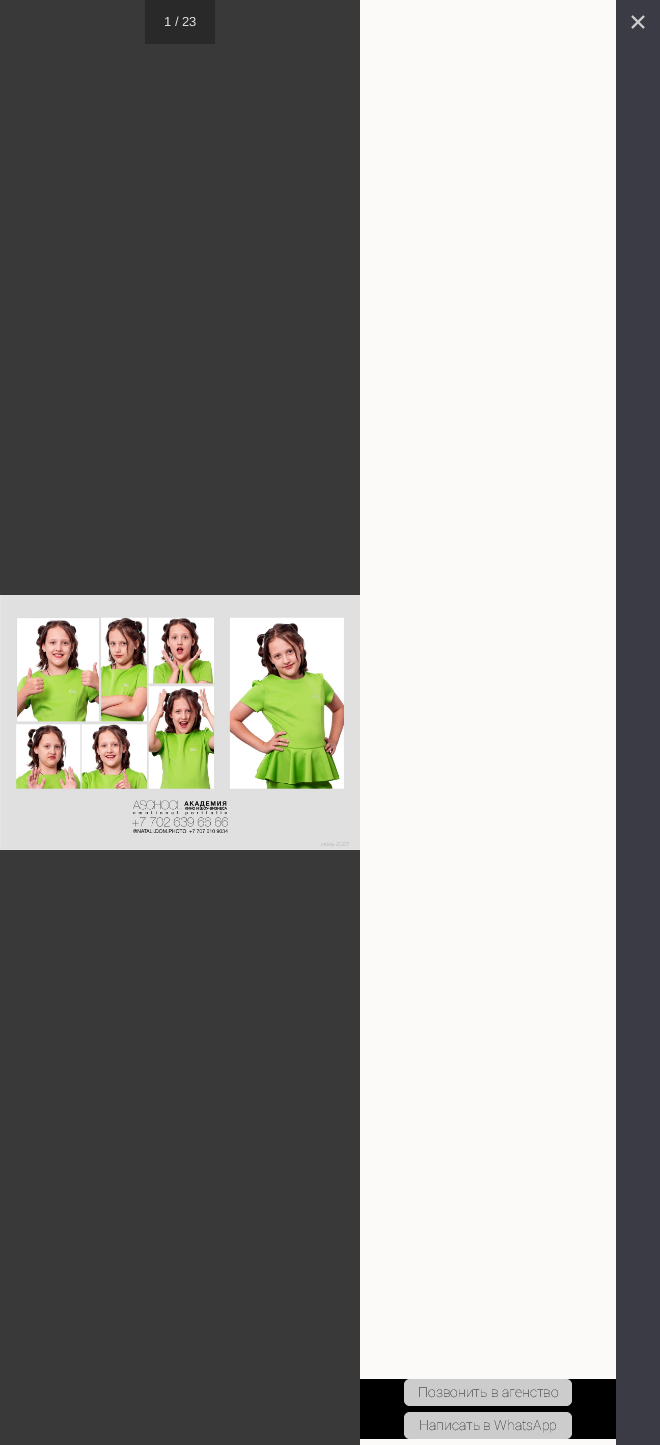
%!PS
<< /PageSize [660 1445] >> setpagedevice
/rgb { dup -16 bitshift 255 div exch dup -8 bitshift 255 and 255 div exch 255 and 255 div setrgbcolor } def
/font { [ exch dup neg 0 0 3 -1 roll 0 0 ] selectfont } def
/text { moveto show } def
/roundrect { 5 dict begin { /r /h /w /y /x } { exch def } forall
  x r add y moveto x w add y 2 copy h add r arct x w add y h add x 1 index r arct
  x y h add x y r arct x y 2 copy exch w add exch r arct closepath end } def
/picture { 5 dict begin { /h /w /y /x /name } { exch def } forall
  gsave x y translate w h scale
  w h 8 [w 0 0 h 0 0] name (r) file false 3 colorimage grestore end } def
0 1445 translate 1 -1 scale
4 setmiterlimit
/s1 { /LiberationSans-Regular 13 font 16#DDDDDD rgb } def
/s2 { /Roboto-Thin 14 font 16#252323 rgb } def
16#FCFAF9 rgb
0 0 660 1445 rectfill
16#3A3939 rgb
0 0 360 1445 rectfill
(pic1.raw) 0 595 360 255 picture
16#3B3B45 rgb
616 0 44 1445 rectfill
16#CCCCCC rgb
1.8 setlinewidth
1 setlinejoin
632 16 moveto 644 28 lineto 644 16 moveto 632 28 lineto stroke
16#292929 rgb
145 0 70 44 rectfill
s1
(1 / 23) 164 26 text
16#000000 rgb
360 1379 256 60 rectfill
16#CCCCCC rgb
404 1379 168 27 6 roundrect fill
s2
(Позвонить в агенство) 418 1397 text
16#CCCCCC rgb
404 1412 168 27 6 roundrect fill
s2
(Написать в WhatsApp) 419 1430 text
showpage
